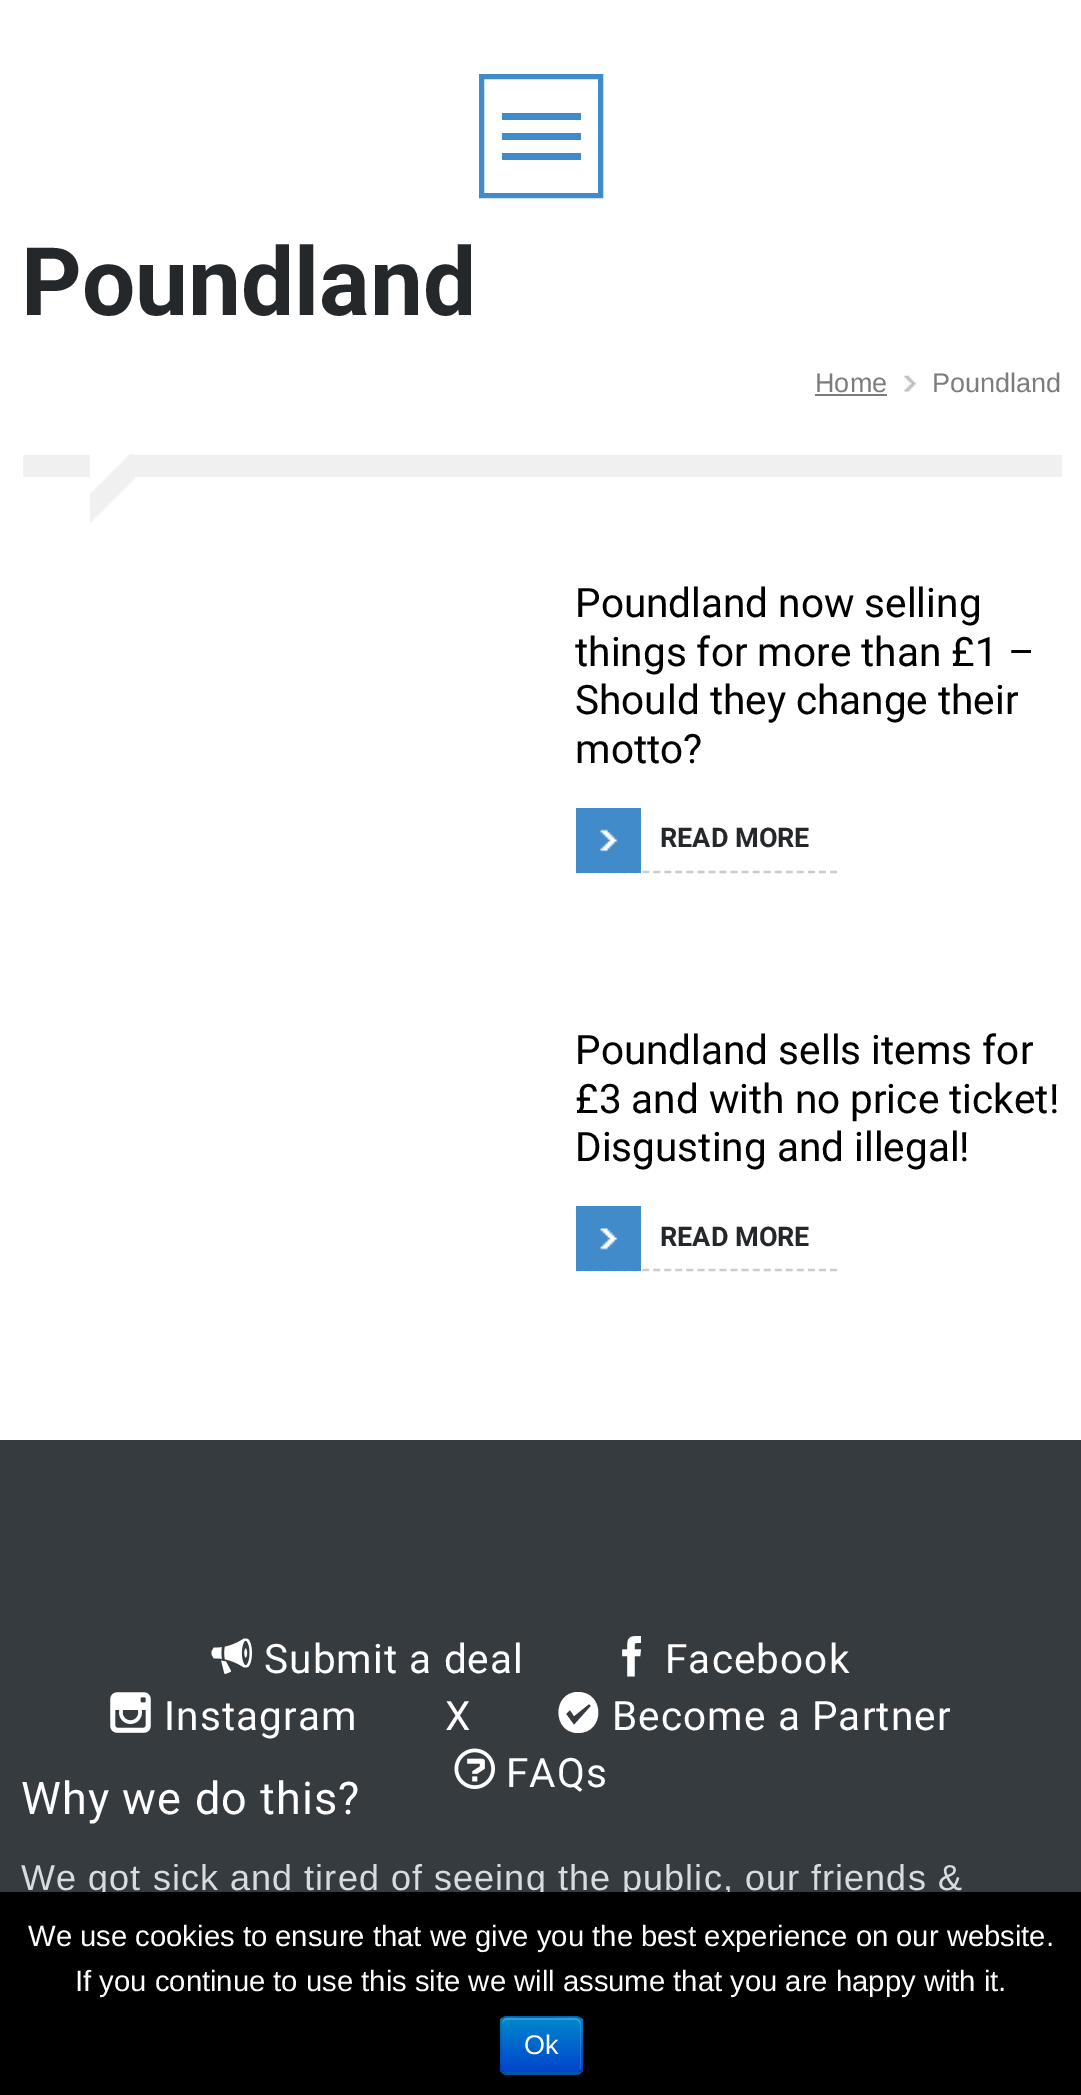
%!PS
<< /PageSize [1081 2095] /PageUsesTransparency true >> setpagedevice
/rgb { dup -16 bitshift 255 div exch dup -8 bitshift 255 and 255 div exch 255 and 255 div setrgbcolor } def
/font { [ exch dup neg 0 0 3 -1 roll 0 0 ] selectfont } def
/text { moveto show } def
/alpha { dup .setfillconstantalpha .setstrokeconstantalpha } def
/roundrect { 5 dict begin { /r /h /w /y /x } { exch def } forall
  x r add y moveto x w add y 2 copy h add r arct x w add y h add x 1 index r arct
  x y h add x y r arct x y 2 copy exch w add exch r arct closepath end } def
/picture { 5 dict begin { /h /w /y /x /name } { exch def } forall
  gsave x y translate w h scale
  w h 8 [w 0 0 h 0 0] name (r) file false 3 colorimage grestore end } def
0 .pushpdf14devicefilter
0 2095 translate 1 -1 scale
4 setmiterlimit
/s1 { /Roboto-Bold 94.5 font 16#25282A rgb } def
/s2 { /LiberationSans-Regular 27 font 16#7C7C7C rgb } def
/s3 { /Roboto-Regular 40.5 font 16#000000 rgb } def
/s4 { /Roboto-Bold 27 font 16#25282A rgb } def
/s5 { /LiberationSans-Regular 29.25 font 16#FFFFFF rgb } def
/s6 { /LiberationSans-Regular 27 font 16#FFFFFF rgb } def
16#FFFFFF rgb
0 0 1081 2095 rectfill
16#428BCA rgb
5 setlinewidth
481.5 76.5 119 119 rectstroke
502 113 79 7 rectfill
502 133 79 7 rectfill
502 153 79 7 rectfill
s1
(Poundland) 21 315 text
s2
(Home) 815 392 text
815 394 72 2 rectfill
(pic1.raw) 904 375 12 17 picture
(Poundland) 932 392 text
16#F0F0F0 rgb
23 455 67 22 rectfill
(pic2.raw) 90 454 45 68 picture
135 455 927 22 rectfill
s3
(Poundland now selling) 575 617 text
(things for more than £1 –) 575 666 text
(Should they change their) 575 714 text
(motto?) 575 763 text
16#CCCCCC rgb
2.2 setlinewidth
[6.75 4.3] 0 setdash
576 872 moveto 837 872 lineto stroke
16#428BCA rgb
576 808 65 65 rectfill
(pic3.raw) 600 829 18 23 picture
s4
(READ MORE) 660 847 text
s3
(Poundland sells items for) 575 1064 text
(£3 and with no price ticket!) 575 1113 text
(Disgusting and illegal!) 575 1161 text
16#CCCCCC rgb
576 1270 moveto 837 1270 lineto stroke
16#428BCA rgb
576 1206 65 65 rectfill
(pic4.raw) 600 1228 18 22 picture
s4
(READ MORE) 660 1246 text
16#363B40 rgb
0 1440 1081 452 rectfill
(pic5.raw) 211 1638 41 36 picture
/Roboto-Regular 40.5 font
16#FFFFFF rgb
264 1673 moveto 1.08 0 (Submit a deal) ashow
(pic6.raw) 622 1636 19 41 picture
665 1673 moveto 1.08 0 (Facebook) ashow
(pic7.raw) 110 1692 41 41 picture
164 1730 moveto 1.08 0 (Instagram) ashow
445 1730 moveto 1.08 0 (X) ashow
578 1692 moveto 605 1692 605 1733 578 1733 curveto 552 1733 552 1692 578 1692 curveto closepath 574 1725 moveto 591 1706 lineto 589 1704 lineto 574 1716 lineto 570 1710 lineto 566 1714 lineto closepath fill
612 1730 moveto 1.08 0 (Become a Partner) ashow
(pic8.raw) 454 1748 41 41 picture
506 1787 moveto 1.08 0 (FAQs) ashow
/Roboto-Regular 45 font
21 1814 moveto 1.08 0 (Why we do this?) ashow
/LiberationSans-Regular 36 font
16#D7DCE0 rgb
21 1890 moveto 1.08 0 (We got sick and tired of seeing the public, our friends &) ashow
16#000000 rgb
0 1892 1081 203 rectfill
s5
(We use cookies to ensure that we give you the best experience on our website.) 28 1946 text
(If you continue to use this site we will assume that you are happy with it.) 75 1991 text
16#006DCC rgb
500 2016 83 59 7 roundrect fill
gsave
500 2016 83 59 7 roundrect clip newpath
gsave 500 2018 moveto 583 2018 lineto 583 2072 lineto 500 2072 lineto closepath clip newpath
<< /ShadingType 2 /ColorSpace /DeviceRGB /Coords [541 2018 541 2072] /Extend [true true] /Function << /FunctionType 2 /Domain [0 1] /C0 [0 0.533 0.8] /C1 [0 0.267 0.8] /N 1 >> >> shfill grestore
grestore
0.2 alpha
16#FFFFFF rgb
506 2020 moveto 576 2020 lineto 578 2020 580 2023 580 2025 curveto 580 2070 lineto 582 2067 581 2062 581 2060 curveto 581 2045 lineto 581 2013 586 2018 553 2018 curveto 518 2018 lineto 510 2018 502 2015 502 2025 curveto 502 2023 504 2020 506 2020 curveto closepath fill
0.25 alpha
16#000000 rgb
[] 0 setdash
580 2071.5 moveto 579 2073 577.5 2073.5 576 2073.5 curveto 506 2073.5 lineto 505 2073.5 503.5 2073 502.5 2071.5 curveto stroke
0.1 alpha
502.5 2071.5 moveto 501 2070.5 500.5 2069 500.5 2068 curveto 500.5 2023 lineto 500.5 2021.5 501 2020 502.5 2019 curveto 503.5 2017.5 505 2017 506 2017 curveto 576 2017 lineto 577.5 2017 579 2017.5 580 2019 curveto 581 2020 581.5 2021.5 581.5 2023 curveto 581.5 2068 lineto 581.5 2069 581 2070.5 580 2071.5 curveto stroke
1 alpha
s6
(Ok) 524 2054 text
.poppdf14devicefilter showpage
